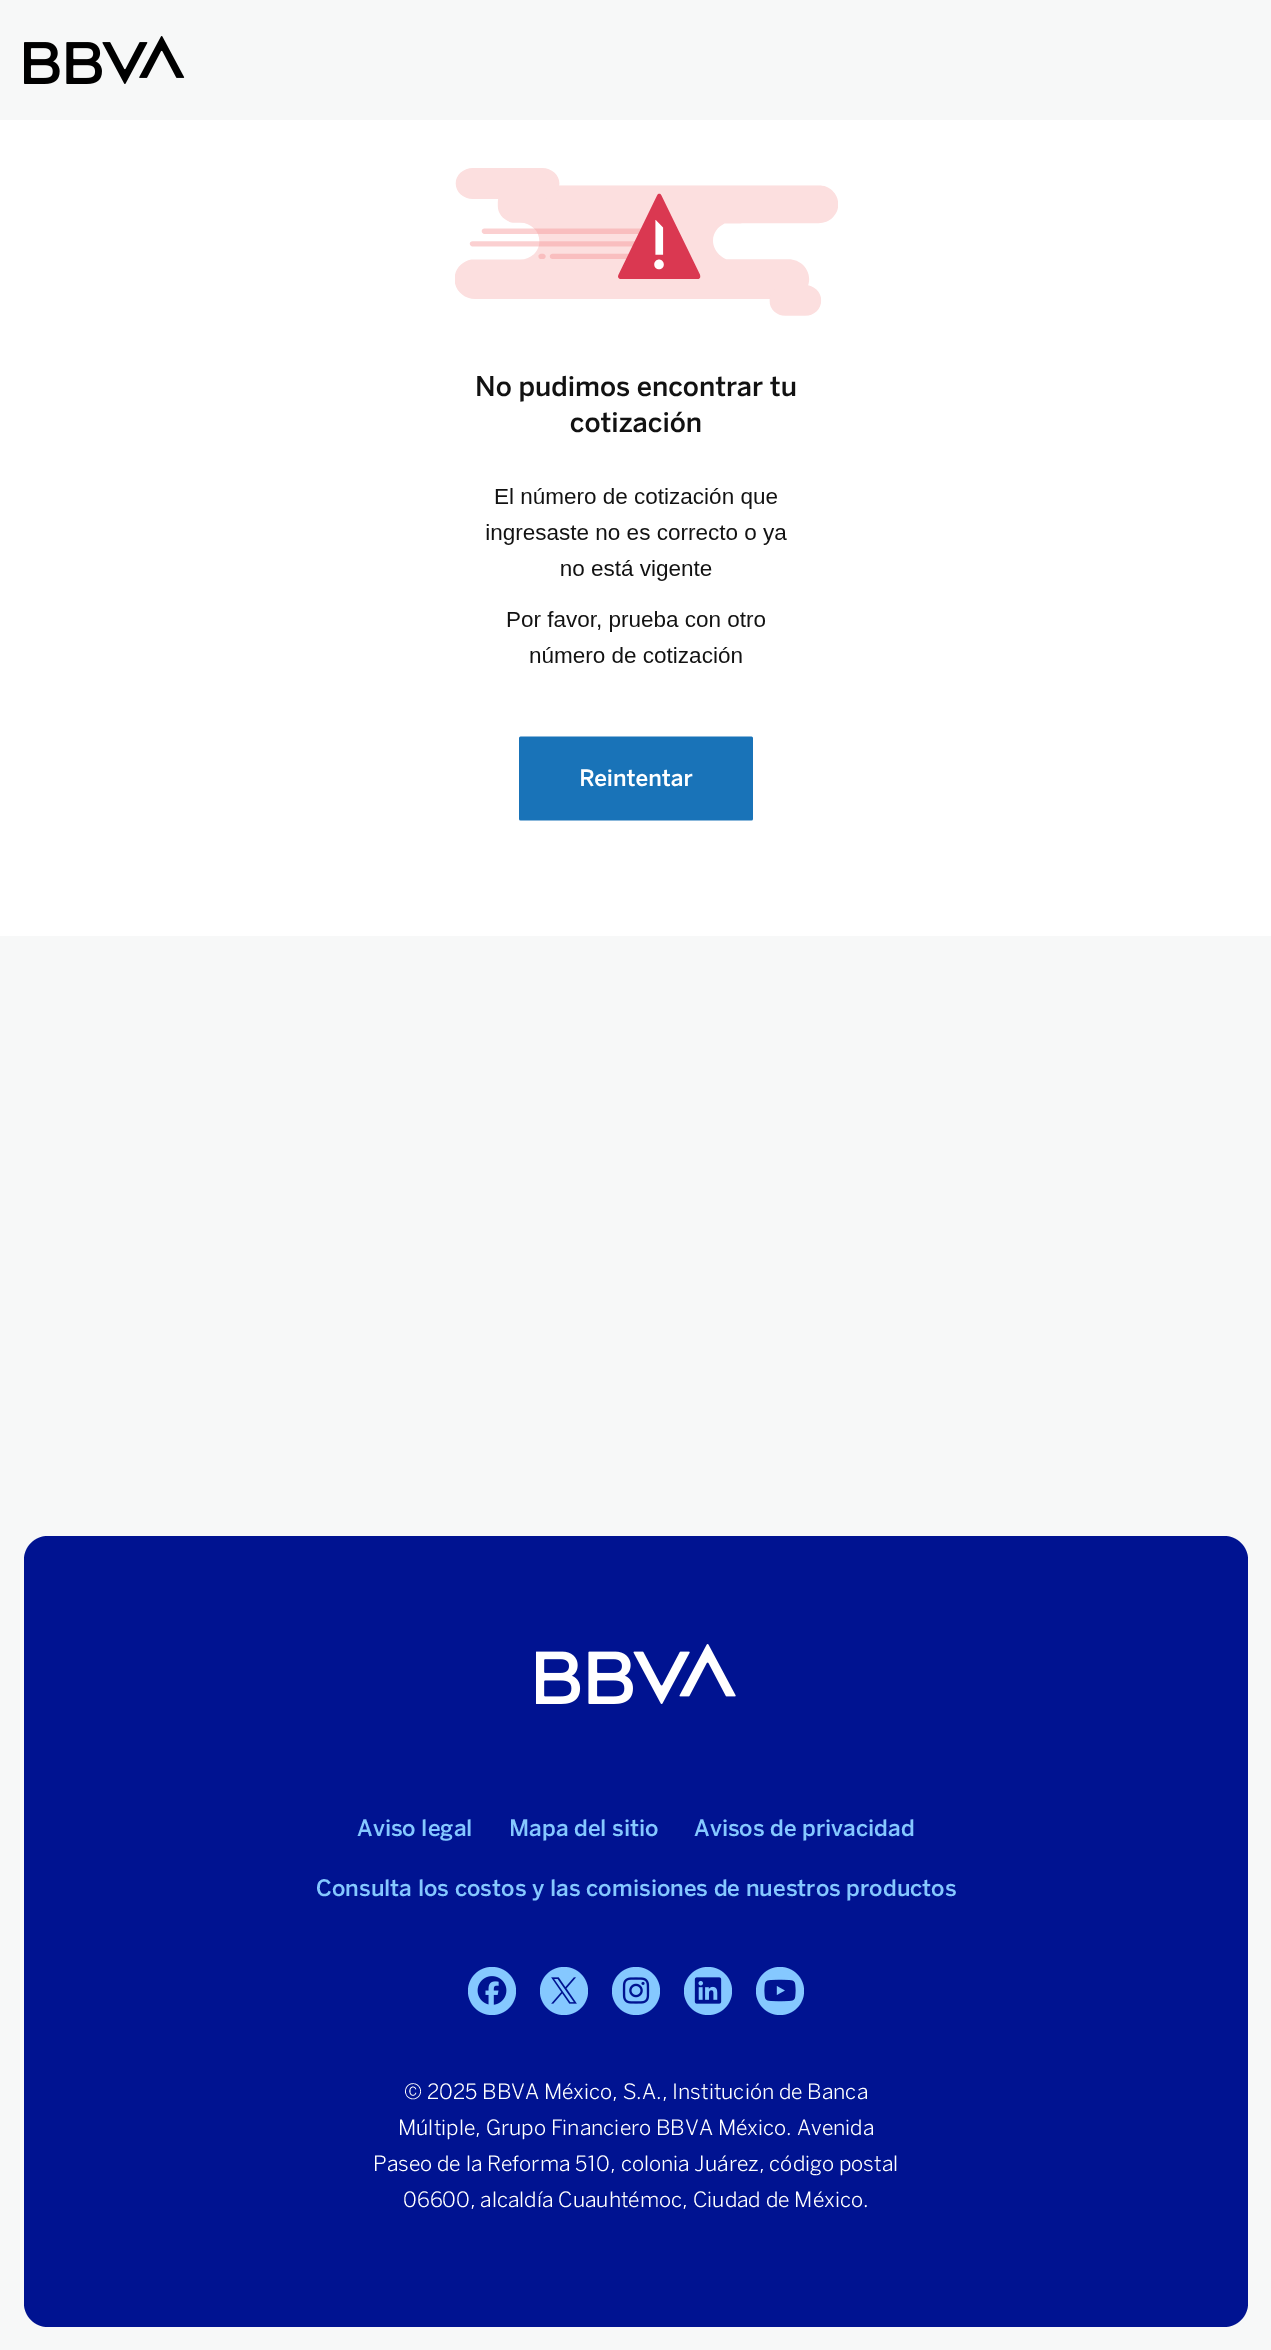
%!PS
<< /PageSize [1271 2350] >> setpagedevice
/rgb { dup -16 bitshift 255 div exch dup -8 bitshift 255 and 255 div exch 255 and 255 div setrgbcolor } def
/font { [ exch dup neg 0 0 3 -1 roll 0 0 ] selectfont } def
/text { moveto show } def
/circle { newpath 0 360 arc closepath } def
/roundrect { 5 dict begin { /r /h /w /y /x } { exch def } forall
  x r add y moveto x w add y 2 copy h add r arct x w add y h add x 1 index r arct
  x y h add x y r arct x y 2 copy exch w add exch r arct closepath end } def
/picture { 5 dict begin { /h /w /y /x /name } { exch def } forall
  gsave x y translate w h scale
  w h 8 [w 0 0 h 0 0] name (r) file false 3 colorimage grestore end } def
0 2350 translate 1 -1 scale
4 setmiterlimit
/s1 { /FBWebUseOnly-Medium 22.5 font 16#85C8FF rgb } def
/s2 { /FBWebUseOnly-Light 21 font 16#FFFFFF rgb } def
16#F7F8F8 rgb
0 0 1271 2350 rectfill
(pic1.raw) 24 36 161 48 picture
16#FFFFFF rgb
0 120 1271 816 rectfill
(pic2.raw) 455 168 383 653 picture
16#001391 rgb
24 1536 1224 791 24 roundrect fill
(pic3.raw) 536 1644 200 60 picture
s1
(Aviso legal) 357 1836 text
(Mapa del sitio) 509 1836 text
(Avisos de privacidad) 694 1836 text
(Consulta los costos y las comisiones de nuestros productos) 316 1896 text
492 1991 24 circle fill
(pic4.raw) 477 1976 30 29 picture
564 1991 24 circle fill
(pic5.raw) 551 1977 26 27 picture
636 1991 24 circle fill
(pic6.raw) 622 1977 28 27 picture
708 1991 24 circle fill
(pic7.raw) 694 1977 28 27 picture
780 1991 24 circle fill
(pic8.raw) 764 1979 32 23 picture
s2
(© 2025 BBVA México, S.A., Institución de Banca) 404 2099 text
(Múltiple, Grupo Financiero BBVA México. Avenida) 398 2135 text
(Paseo de la Reforma 510, colonia Juárez, código postal) 373 2171 text
(06600, alcaldía Cuauhtémoc, Ciudad de México.) 403 2207 text
showpage
